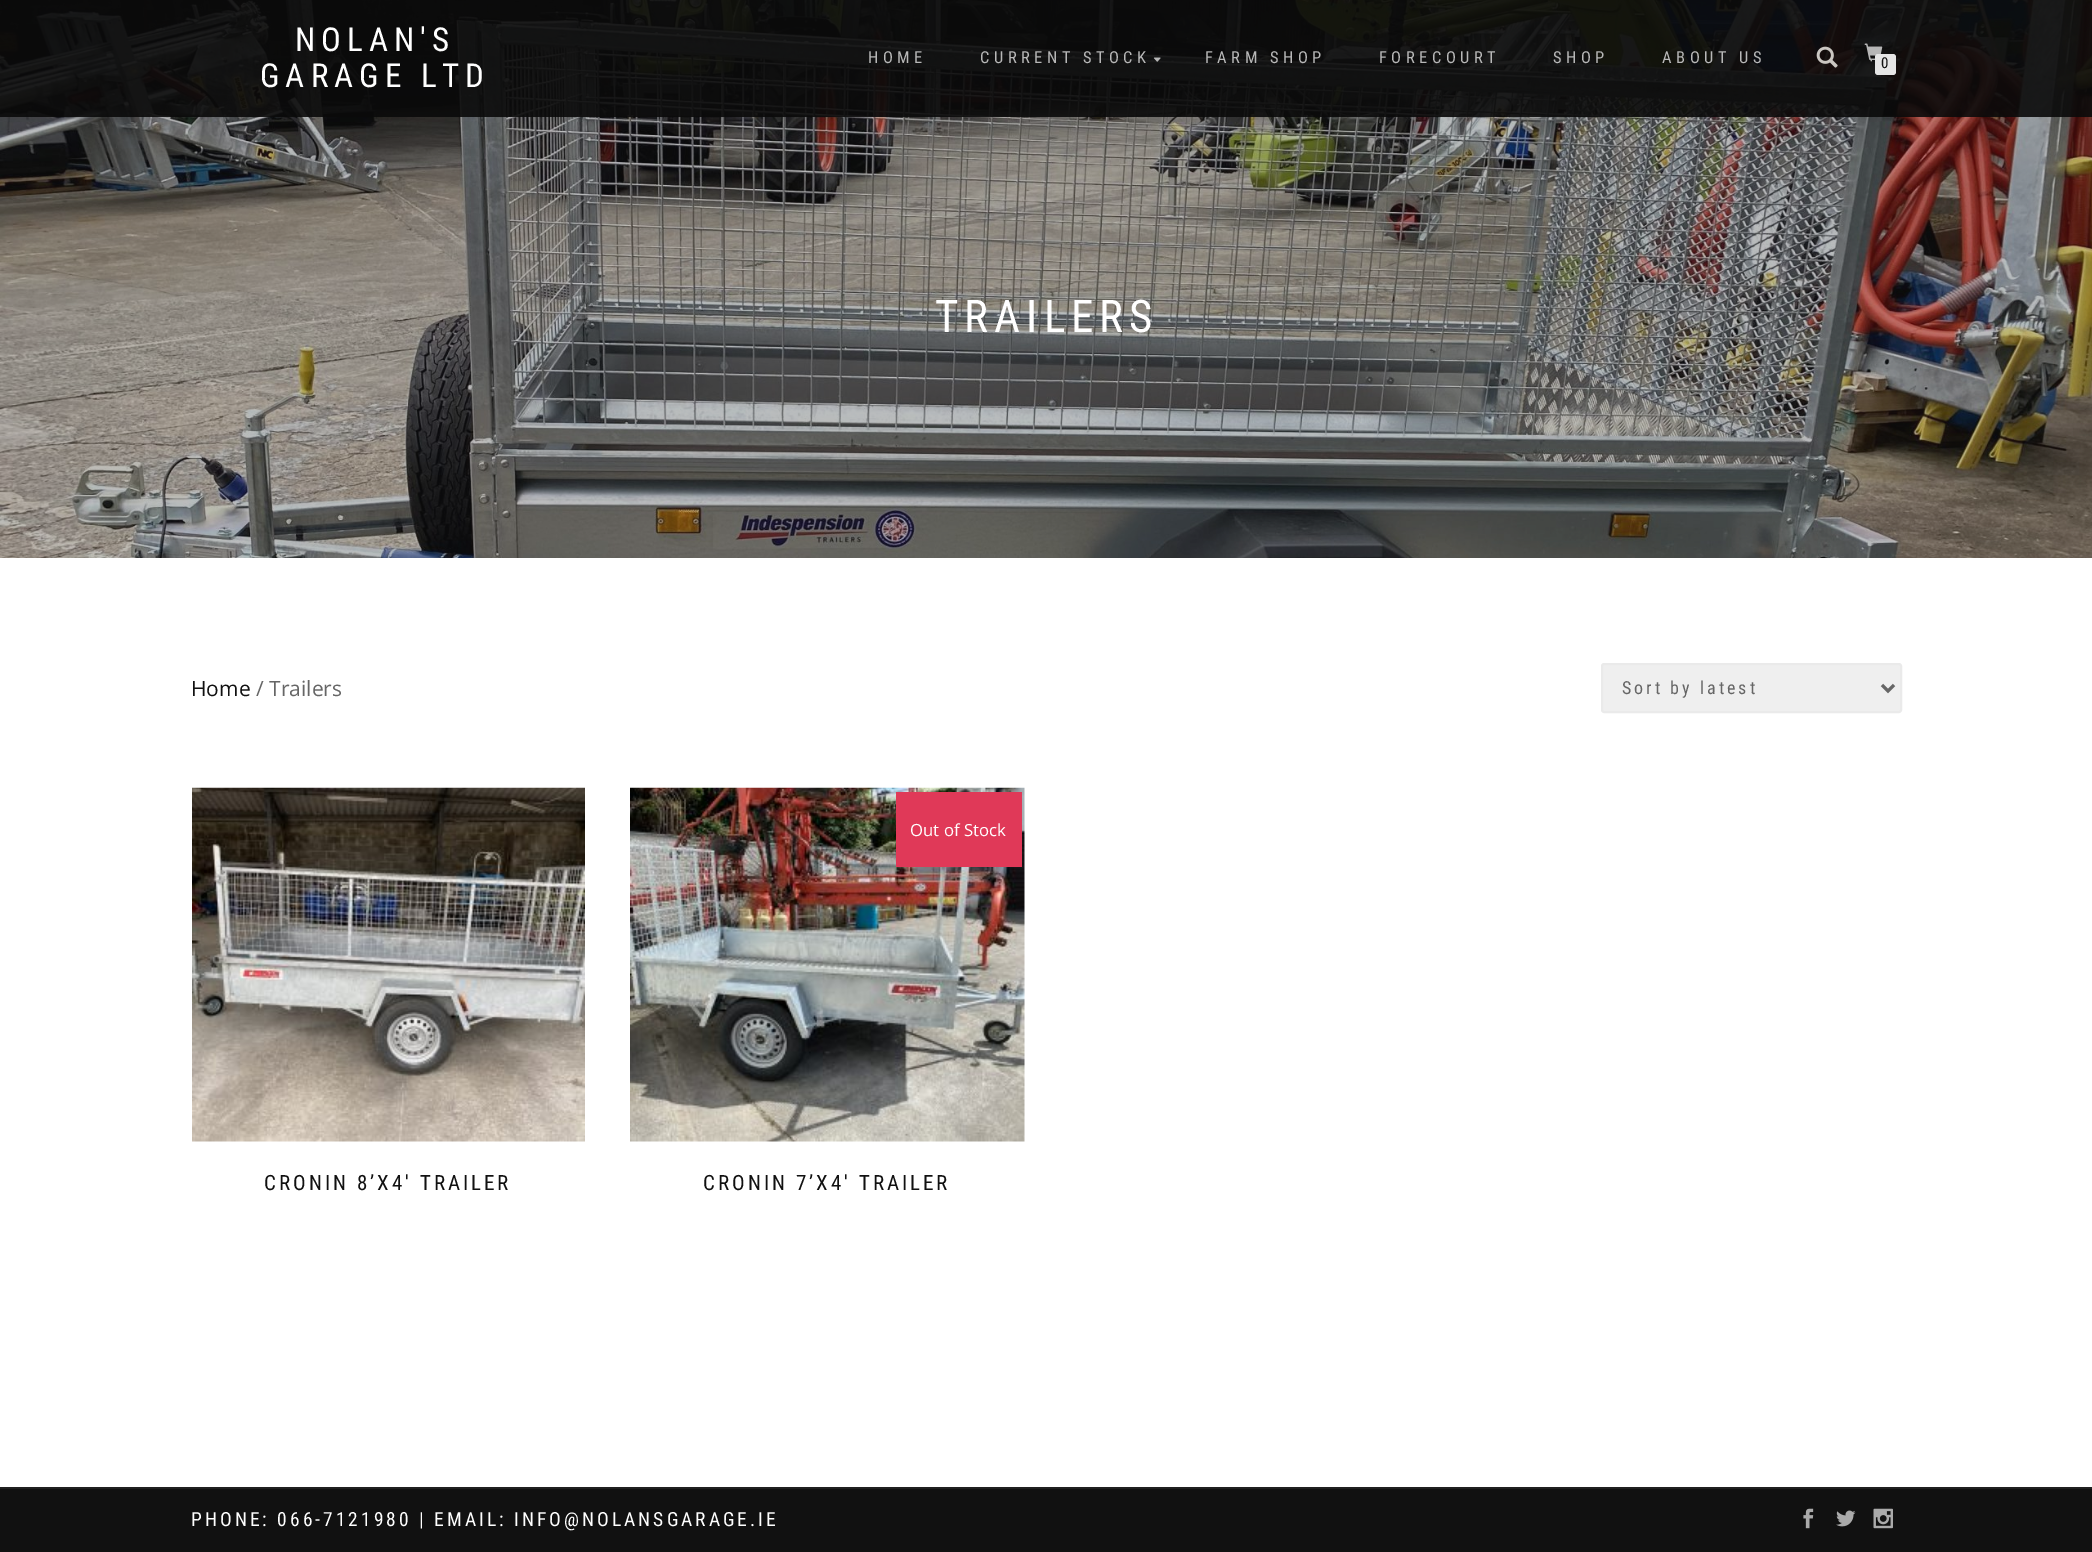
%!PS
<< /PageSize [2092 1552] /PageUsesTransparency true >> setpagedevice
/rgb { dup -16 bitshift 255 div exch dup -8 bitshift 255 and 255 div exch 255 and 255 div setrgbcolor } def
/font { [ exch dup neg 0 0 3 -1 roll 0 0 ] selectfont } def
/text { moveto show } def
/alpha { dup .setfillconstantalpha .setstrokeconstantalpha } def
/roundrect { 5 dict begin { /r /h /w /y /x } { exch def } forall
  x r add y moveto x w add y 2 copy h add r arct x w add y h add x 1 index r arct
  x y h add x y r arct x y 2 copy exch w add exch r arct closepath end } def
/picture { 5 dict begin { /h /w /y /x /name } { exch def } forall
  gsave x y translate w h scale
  w h 8 [w 0 0 h 0 0] name (r) file false 3 colorimage grestore end } def
0 .pushpdf14devicefilter
0 1552 translate 1 -1 scale
4 setmiterlimit
/s1 { /RobotoCondensed-Regular 15 font 16#111111 rgb } def
/s2 { /OpenSans-Regular 21 font 16#111111 rgb } def
/s3 { /OpenSans-Regular 21 font 16#666666 rgb } def
/s4 { /OpenSans-Regular 16.75 font 16#FFFFFF rgb } def
16#FFFFFF rgb
0 0 2092 1552 rectfill
(pic4.raw) 0 0 2092 558 picture
0.9 alpha
16#0A0A0A rgb
0 0 2092 117 rectfill
/RobotoCondensed-Regular 33 font
1 alpha
16#FFFFFF rgb
295 51 moveto 6 0 (NOLAN'S) ashow
260 87 moveto 6 0 (GARAGE LTD) ashow
/RobotoCondensed-Regular 16.5 font
16#B8B8B8 rgb
868 63 moveto 4.5 0 (HOME) ashow
980 63 moveto 4.5 0 (CURRENT STOCK) ashow
(pic1.raw) 1153 57 8 5 picture
1205 63 moveto 4.5 0 (FARM SHOP) ashow
1379 63 moveto 4.5 0 (FORECOURT) ashow
1553 63 moveto 4.5 0 (SHOP) ashow
1662 63 moveto 4.5 0 (ABOUT US) ashow
(pic2.raw) 1816 46 22 22 picture
(pic3.raw) 1864 43 19 19 picture
16#E5E5E5 rgb
1875 54 21 21 3 roundrect fill
s1
(0) 1881 68 text
/RobotoCondensed-Regular 45 font
16#FFFFFF rgb
935 332 moveto 6 0 (TRAILERS) ashow
s2
(Home) 191 696 text
s3
(/ Trailers) 256 696 text
16#EFEFEF rgb
1602 664 299 48 2 roundrect gsave fill grestore
16#EAEAEA rgb
2 setlinewidth
stroke
16#666666 rgb
3 setlinewidth
1882 685 moveto 1888 691 lineto 1894 685 lineto stroke
/RobotoCondensed-Regular 18 font
1622 694 moveto 3 0 (Sort by latest) ashow
(pic5.raw) 192 787 393 355 picture
/RobotoCondensed-Regular 21 font
16#111111 rgb
264 1190 moveto 3 0 (CRONIN 8’X4′ TRAILER) ashow
(pic6.raw) 630 787 395 355 picture
16#E03958 rgb
896 792 126 75 rectfill
s4
(Out of Stock) 910 836 text
/RobotoCondensed-Regular 21 font
16#111111 rgb
703 1190 moveto 3 0 (CRONIN 7’X4′ TRAILER) ashow
0 1489 2092 63 rectfill
16#202020 rgb
0 1487 2092 2 rectfill
/RobotoCondensed-Regular 19.5 font
16#FFFFFF rgb
191 1526 moveto 3 0 (PHONE: 066-7121980 | EMAIL: INFO@NOLANSGARAGE.IE) ashow
(pic7.raw) 1803 1508 11 21 picture
(pic8.raw) 1836 1510 20 17 picture
(pic9.raw) 1873 1508 20 21 picture
.poppdf14devicefilter showpage
